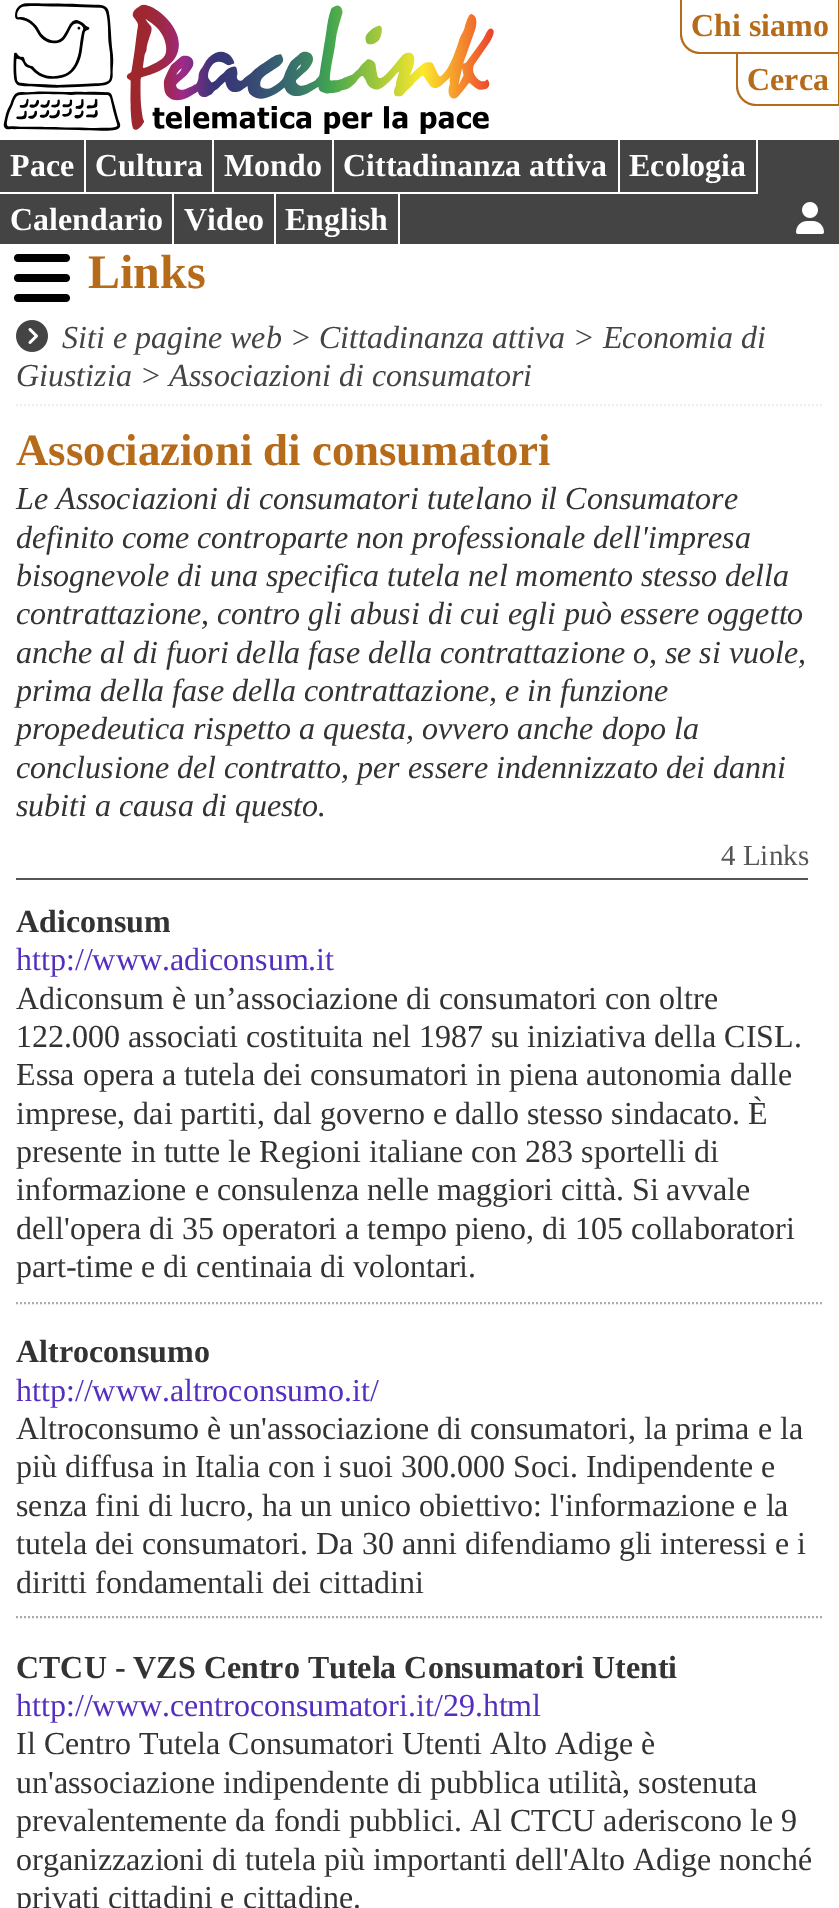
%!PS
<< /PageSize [839 1908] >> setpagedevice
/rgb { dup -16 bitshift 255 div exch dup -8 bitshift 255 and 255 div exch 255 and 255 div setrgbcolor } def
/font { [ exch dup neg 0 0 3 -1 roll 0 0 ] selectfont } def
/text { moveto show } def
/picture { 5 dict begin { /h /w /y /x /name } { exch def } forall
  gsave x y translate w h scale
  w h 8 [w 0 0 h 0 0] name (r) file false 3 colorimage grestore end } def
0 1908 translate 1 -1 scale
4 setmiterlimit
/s1 { /LiberationSerif-Bold 32 font 16#B66B1A rgb } def
/s2 { /LiberationSerif-Bold 32 font 16#FFFFFF rgb } def
/s3 { /LiberationSerif-Bold 48 font 16#B66B1A rgb } def
/s4 { /LiberationSerif-Italic 32 font 16#444444 rgb } def
/s5 { /LiberationSerif-Bold 44.75 font 16#B66B1A rgb } def
/s6 { /LiberationSerif-Italic 32 font 16#333333 rgb } def
/s7 { /LiberationSerif-Regular 29 font 16#555555 rgb } def
/s8 { /LiberationSerif-Bold 32 font 16#333333 rgb } def
/s9 { /LiberationSerif-Regular 32 font 16#542EBF rgb } def
/s10 { /LiberationSerif-Regular 32 font 16#333333 rgb } def
16#FFFFFF rgb
0 0 839 1908 rectfill
(pic1.raw) 3 3 491 131 picture
16#B66B1A rgb
680 0 moveto 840 0 lineto 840 54 lineto 700 54 lineto 689 54 680 45 680 34 curveto closepath 682 0 moveto 838 0 lineto 838 52 lineto 700 52 lineto 690 52 682 44 682 34 curveto closepath eofill
s1
(Chi siamo) 691 36 text
736 54 moveto 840 54 lineto 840 106 lineto 756 106 lineto 745 106 736 97 736 86 curveto closepath 738 54 moveto 838 54 lineto 838 104 lineto 756 104 lineto 746 104 738 96 738 86 curveto closepath eofill
(Cerca) 747 90 text
16#444444 rgb
0 140 839 104 rectfill
16#FFFFFF rgb
84 140 2 54 rectfill
0 192 86 2 rectfill
(Pace) 10 176 text
212 140 2 54 rectfill
86 192 128 2 rectfill
(Cultura) 95 176 text
332 140 2 54 rectfill
214 192 120 2 rectfill
(Mondo) 224 176 text
618 140 2 54 rectfill
334 192 286 2 rectfill
(Cittadinanza attiva) 343 176 text
756 140 2 54 rectfill
620 192 138 2 rectfill
(Ecologia) 629 176 text
172 194 2 50 rectfill
(Calendario) 10 230 text
274 194 2 50 rectfill
(Video) 184 230 text
398 194 2 50 rectfill
(English) 285 230 text
(pic2.raw) 796 202 28 32 picture
(pic3.raw) 14 254 56 48 picture
s3
(Links) 88 288 text
16#EEEEEE rgb
2 setlinewidth
[2 2] 0 setdash
16 405 moveto 824 405 lineto stroke
(pic4.raw) 16 320 32 32 picture
s4
(Siti e pagine web > Cittadinanza attiva > Economia di) 62 348 text
(Giustizia > Associazioni di consumatori) 16 386 text
s5
(Associazioni di consumatori) 16 465 text
s6
(Le Associazioni di consumatori tutelano il Consumatore) 16 509 text
(definito come controparte non professionale dell'impresa) 16 548 text
(bisognevole di una specifica tutela nel momento stesso della) 16 586 text
(contrattazione, contro gli abusi di cui egli può essere oggetto) 16 624 text
(anche al di fuori della fase della contrattazione o, se si vuole,) 16 663 text
(prima della fase della contrattazione, e in funzione) 16 701 text
(propedeutica rispetto a questa, ovvero anche dopo la) 16 739 text
(conclusione del contratto, per essere indennizzato dei danni) 16 778 text
(subiti a causa di questo.) 16 816 text
16#555555 rgb
16 878 792 2 rectfill
s7
(4 Links) 721 865 text
16#AAAAAA rgb
16 1303 moveto 824 1303 lineto stroke
s8
(Adiconsum) 16 932 text
s9
(http://www.adiconsum.it) 16 970 text
s10
(Adiconsum è un’associazione di consumatori con oltre) 16 1009 text
(122.000 associati costituita nel 1987 su iniziativa della CISL.) 16 1047 text
(Essa opera a tutela dei consumatori in piena autonomia dalle) 16 1085 text
(imprese, dai partiti, dal governo e dallo stesso sindacato. È) 16 1124 text
(presente in tutte le Regioni italiane con 283 sportelli di) 16 1162 text
(informazione e consulenza nelle maggiori città. Si avvale) 16 1200 text
(dell'opera di 35 operatori a tempo pieno, di 105 collaboratori) 16 1239 text
(part-time e di centinaia di volontari.) 16 1277 text
16#AAAAAA rgb
16 1617 moveto 824 1617 lineto stroke
s8
(Altroconsumo) 16 1362 text
s9
(http://www.altroconsumo.it/) 16 1401 text
s10
(Altroconsumo è un'associazione di consumatori, la prima e la) 16 1439 text
(più diffusa in Italia con i suoi 300.000 Soci. Indipendente e) 16 1477 text
(senza fini di lucro, ha un unico obiettivo: l'informazione e la) 16 1516 text
(tutela dei consumatori. Da 30 anni difendiamo gli interessi e i) 16 1554 text
(diritti fondamentali dei cittadini) 16 1593 text
s8
(CTCU - VZS Centro Tutela Consumatori Utenti) 16 1678 text
s9
(http://www.centroconsumatori.it/29.html) 16 1716 text
s10
(Il Centro Tutela Consumatori Utenti Alto Adige è) 16 1754 text
(un'associazione indipendente di pubblica utilità, sostenuta) 16 1793 text
(prevalentemente da fondi pubblici. Al CTCU aderiscono le 9) 16 1831 text
(organizzazioni di tutela più importanti dell'Alto Adige nonché) 16 1870 text
(privati cittadini e cittadine.) 16 1908 text
showpage
